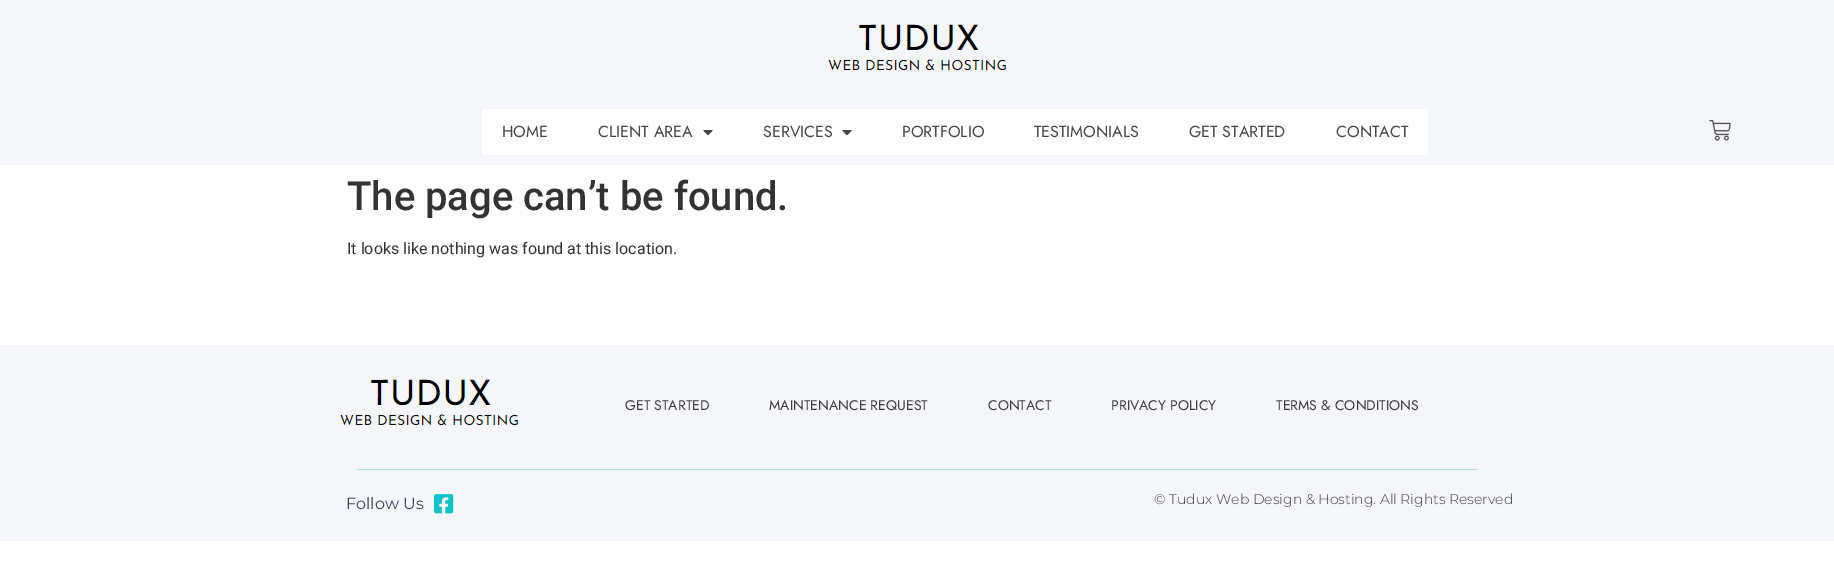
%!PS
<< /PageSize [1834 577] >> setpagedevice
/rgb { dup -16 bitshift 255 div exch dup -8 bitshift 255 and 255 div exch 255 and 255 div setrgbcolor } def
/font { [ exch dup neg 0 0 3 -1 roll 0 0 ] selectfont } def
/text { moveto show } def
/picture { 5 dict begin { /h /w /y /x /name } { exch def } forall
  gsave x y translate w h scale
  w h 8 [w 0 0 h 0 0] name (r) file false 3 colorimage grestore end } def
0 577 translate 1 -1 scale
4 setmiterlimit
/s1 { /Jost-Regular 16 font 16#474747 rgb } def
/s2 { /Roboto-Medium 40 font 16#333333 rgb } def
/s3 { /Roboto-Regular 16 font 16#333333 rgb } def
/s4 { /Jost-Regular 14 font 16#3D3D3D rgb } def
/s5 { /Montserrat-Regular 16 font 16#3D4459 rgb } def
/s6 { /Montserrat-Light 14 font 16#3D3D3D rgb } def
16#FFFFFF rgb
0 0 1834 577 rectfill
16#F5F6FA rgb
0 0 1834 165 rectfill
(pic1.raw) 828 24 179 47 picture
16#FFFFFF rgb
482 109 946 46 rectfill
s1
(HOME) 502 137 text
(CLIENT AREA) 598 137 text
(pic2.raw) 703 130 10 6 picture
(SERVICES) 763 137 text
(pic2.raw) 842 130 10 6 picture
(PORTFOLIO) 902 137 text
(TESTIMONIALS) 1034 137 text
(GET STARTED) 1189 137 text
(CONTACT) 1336 137 text
(pic3.raw) 1709 120 22 21 picture
s2
(The page can’t be found.) 347 210 text
s3
(It looks like nothing was found at this location.) 347 254 text
16#F5F6FA rgb
0 345 1834 196 rectfill
(pic1.raw) 340 379 179 47 picture
s4
(GET STARTED) 625 410 text
(MAINTENANCE REQUEST) 769 410 text
(CONTACT) 988 410 text
(PRIVACY POLICY) 1111 410 text
(TERMS & CONDITIONS) 1276 410 text
16#B5DCD4 rgb
357 469 1120 1 rectfill
s5
(Follow Us) 346 509 text
(pic4.raw) 434 494 20 20 picture
s6
(© Tudux Web Design & Hosting. All Rights Reserved) 1154 504 text
showpage
